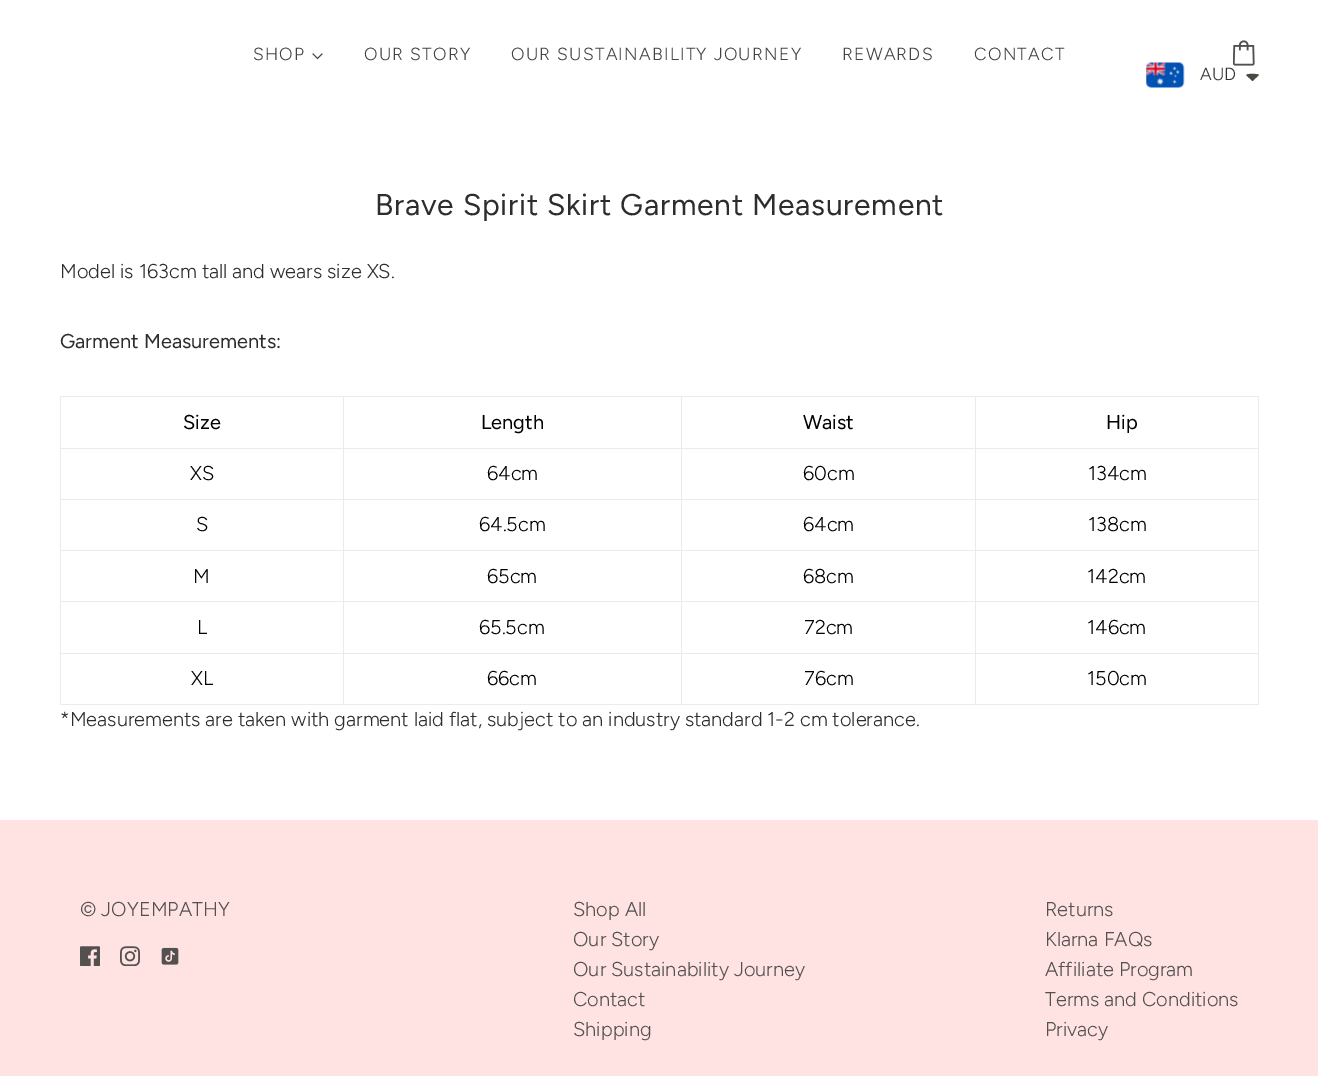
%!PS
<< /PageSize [1318 1076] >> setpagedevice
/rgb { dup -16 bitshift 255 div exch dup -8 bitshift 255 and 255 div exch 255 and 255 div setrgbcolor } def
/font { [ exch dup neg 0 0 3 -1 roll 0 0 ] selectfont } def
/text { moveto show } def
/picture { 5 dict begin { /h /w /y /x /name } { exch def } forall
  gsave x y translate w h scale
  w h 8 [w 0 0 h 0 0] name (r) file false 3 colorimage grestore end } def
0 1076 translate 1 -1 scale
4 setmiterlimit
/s1 { /Figtree-Light 20 font 16#2D2D2D rgb } def
/s2 { /Figtree-Regular 20 font 16#2D2D2D rgb } def
/s3 { /Figtree-Regular 20 font 16#000000 rgb } def
/s4 { /Figtree-Light 20 font 16#000000 rgb } def
/s5 { /Figtree-Light 20 font 16#535050 rgb } def
/s6 { /Figtree-Light 17.5 font 16#333333 rgb } def
16#FFFFFF rgb
0 0 1318 1076 rectfill
/Figtree-Light 17.5 font
16#474242 rgb
253 60 moveto 1.25 0 (SHOP) ashow
(pic1.raw) 312 53 11 7 picture
364 60 moveto 1.25 0 (OUR STORY) ashow
511 60 moveto 1.25 0 (OUR SUSTAINABILITY JOURNEY) ashow
842 60 moveto 1.25 0 (REWARDS) ashow
974 60 moveto 1.25 0 (CONTACT) ashow
(pic2.raw) 1233 40 22 26 picture
/Figtree-Regular 30 font
16#2D2D2D rgb
375 215 moveto 0.75 0 (Brave Spirit Skirt Garment Measurement) ashow
s1
(Model is 163cm tall and wears size XS.) 60 278 text
s2
(Garment Measurements:) 60 348 text
16#EBEBEB rgb
60 396 1199 1 rectfill
1258 396 1 309 rectfill
60 704 1199 1 rectfill
60 396 1 309 rectfill
s3
(Size) 183 429 text
16#EBEBEB rgb
975 448 284 1 rectfill
975 499 284 1 rectfill
975 550 284 1 rectfill
975 601 284 1 rectfill
975 653 284 1 rectfill
975 653 1 52 rectfill
681 653 295 1 rectfill
975 601 1 53 rectfill
681 601 295 1 rectfill
975 550 1 53 rectfill
681 550 295 1 rectfill
975 499 1 52 rectfill
681 499 295 1 rectfill
975 448 1 52 rectfill
681 448 295 1 rectfill
681 653 1 52 rectfill
343 653 340 1 rectfill
681 601 1 53 rectfill
343 601 340 1 rectfill
681 550 1 53 rectfill
343 550 340 1 rectfill
681 499 1 52 rectfill
343 499 340 1 rectfill
681 448 1 52 rectfill
343 448 340 1 rectfill
343 653 1 52 rectfill
60 653 284 1 rectfill
343 601 1 53 rectfill
60 601 284 1 rectfill
343 550 1 53 rectfill
60 550 284 1 rectfill
343 499 1 52 rectfill
60 499 284 1 rectfill
343 448 1 52 rectfill
60 448 284 1 rectfill
343 396 1 53 rectfill
s3
(Length) 481 429 text
16#EBEBEB rgb
681 396 1 53 rectfill
s3
(Waist) 803 429 text
16#EBEBEB rgb
975 396 1 53 rectfill
s3
(Hip) 1106 429 text
s4
(XS) 190 480 text
(64cm) 487 480 text
(60cm) 803 480 text
(134cm) 1088 480 text
(S) 196 531 text
(64.5cm) 479 531 text
(64cm) 803 531 text
(138cm) 1088 531 text
(M) 193 583 text
(65cm) 487 583 text
(68cm) 803 583 text
(142cm) 1087 583 text
(L) 197 634 text
(65.5cm) 479 634 text
(72cm) 804 634 text
(146cm) 1087 634 text
(XL) 191 685 text
(66cm) 487 685 text
(76cm) 804 685 text
(150cm) 1087 685 text
s1
(*Measurements are taken with garment laid flat, subject to an industry standard 1-2 cm tolerance.) 60 726 text
16#FFE2E2 rgb
0 820 1318 256 rectfill
s5
(© JOYEMPATHY) 80 916 text
(pic3.raw) 80 946 20 20 picture
(pic4.raw) 120 946 20 20 picture
(pic5.raw) 161 947 18 18 picture
(Shop All) 573 916 text
(Our Story) 573 946 text
(Our Sustainability Journey) 573 976 text
(Contact) 573 1006 text
(Shipping) 573 1036 text
(Returns) 1045 916 text
(Klarna FAQs) 1045 946 text
(Affiliate Program) 1045 976 text
(Terms and Conditions) 1045 1006 text
(Privacy) 1045 1036 text
(pic6.raw) 1146 62 39 26 picture
s6
(AUD) 1200 80 text
16#474942 rgb
1249 74 moveto 1251.5 74 1257 73.5 1259 75 curveto 1252.5 81 lineto 1246 75 lineto 1247 74.5 1248 74 1249 74 curveto closepath fill
showpage
